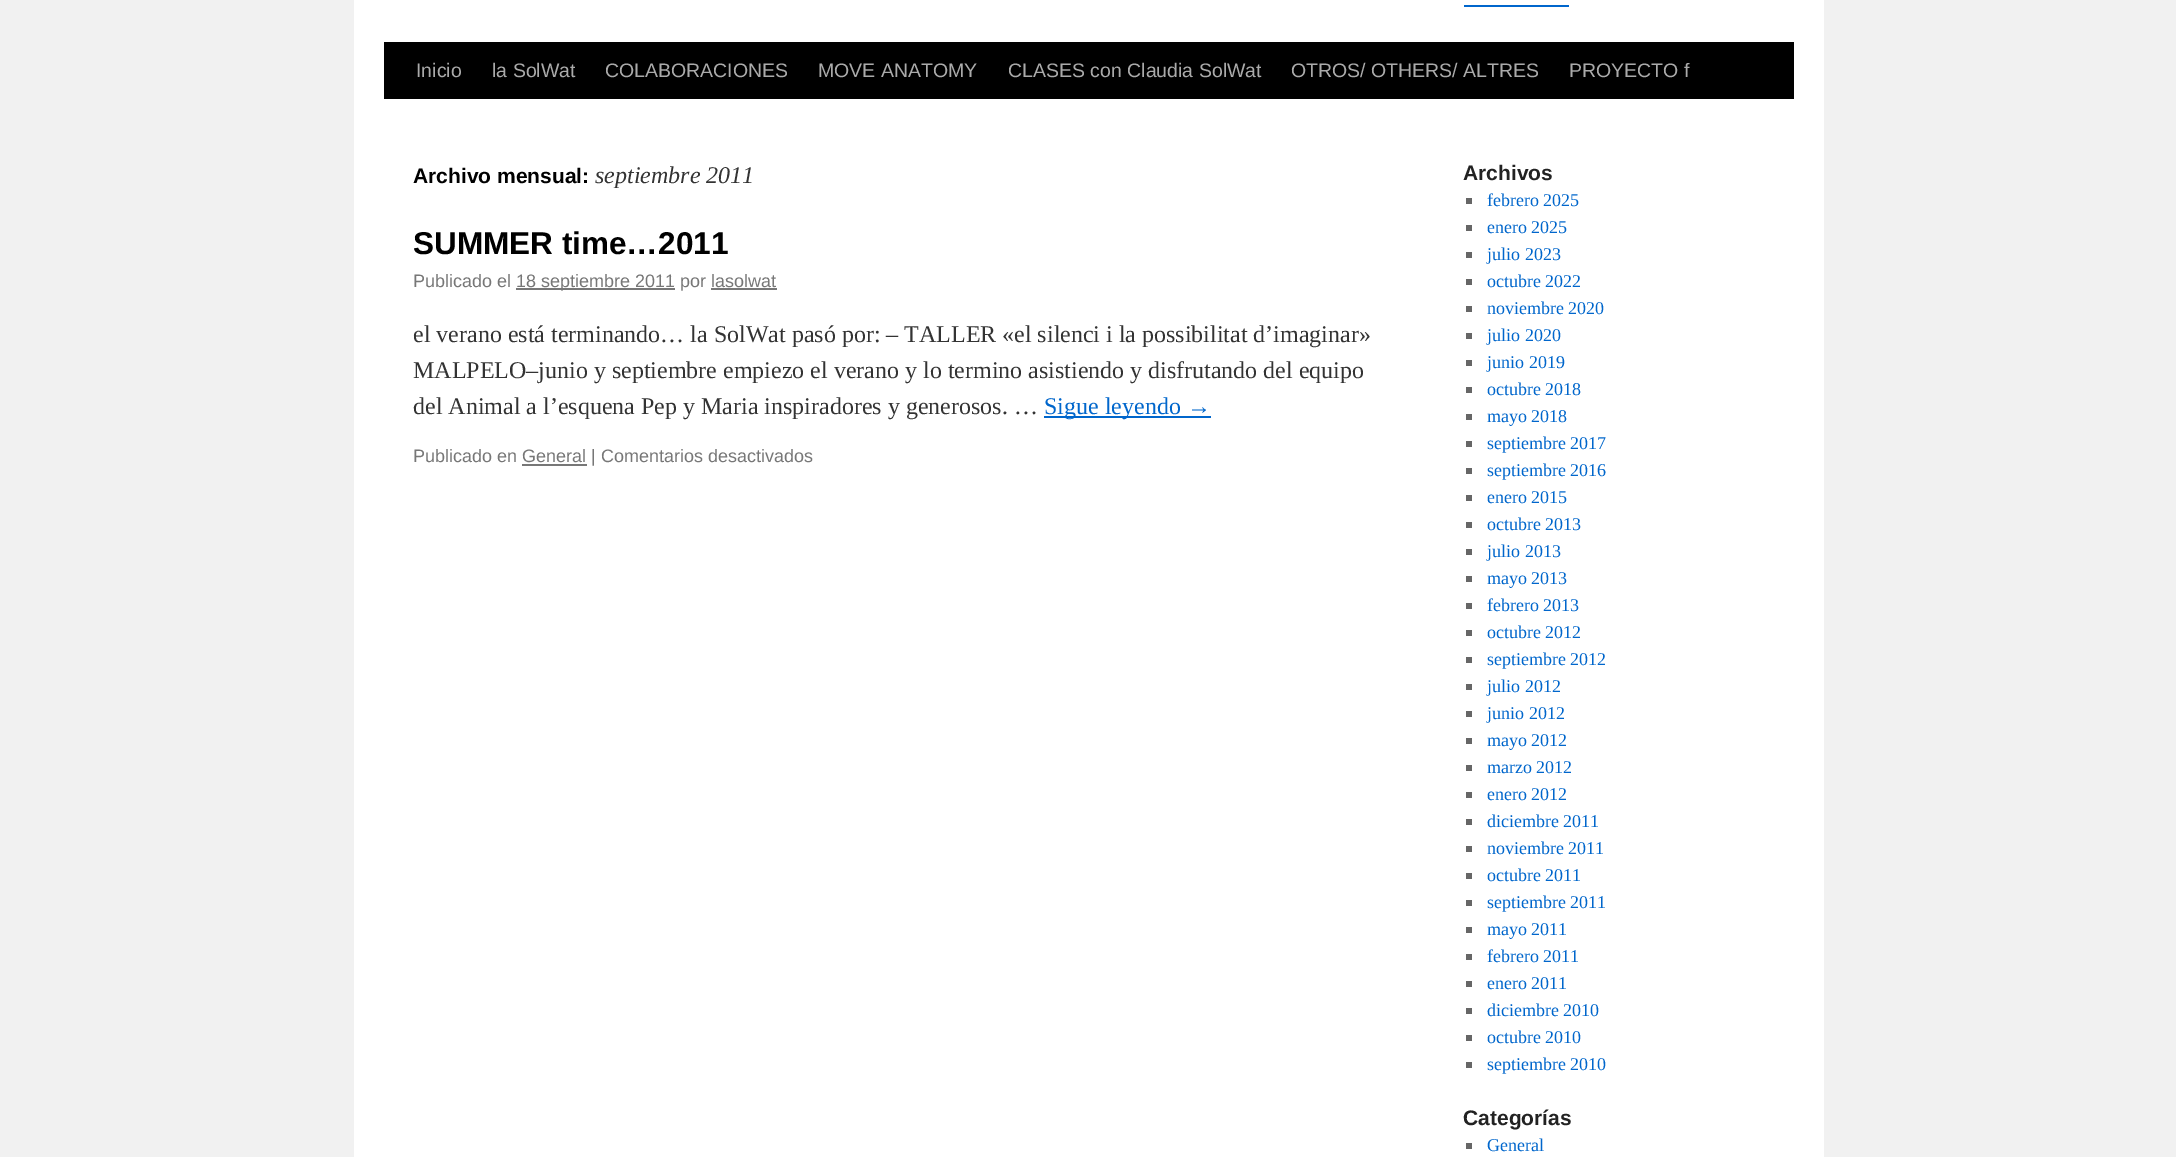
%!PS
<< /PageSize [2176 1157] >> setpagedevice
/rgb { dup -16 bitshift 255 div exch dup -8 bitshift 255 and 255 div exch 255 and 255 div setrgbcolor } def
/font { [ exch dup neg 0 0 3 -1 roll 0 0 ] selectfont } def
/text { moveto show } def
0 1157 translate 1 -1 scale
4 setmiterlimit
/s1 { /LiberationSans-Regular 19.5 font 16#AAAAAA rgb } def
/s2 { /LiberationSans-Bold 21 font 16#000000 rgb } def
/s3 { /LiberationSerif-Italic 24 font 16#333333 rgb } def
/s4 { /LiberationSans-Bold 31.5 font 16#000000 rgb } def
/s5 { /LiberationSans-Regular 18 font 16#777777 rgb } def
/s6 { /LiberationSerif-Regular 24 font 16#333333 rgb } def
/s7 { /LiberationSerif-Regular 24 font 16#0066CC rgb } def
/s8 { /LiberationSans-Bold 21 font 16#222222 rgb } def
/s9 { /LiberationSerif-Regular 18 font 16#0066CC rgb } def
16#F1F1F1 rgb
0 0 2176 1157 rectfill
16#FFFFFF rgb
354 0 1470 1157 rectfill
16#0066CC rgb
1464 5 105 2 rectfill
16#000000 rgb
384 42 1410 57 rectfill
s1
(Inicio) 416 77 text
(la SolWat) 492 77 text
(COLABORACIONES) 605 77 text
(MOVE ANATOMY) 818 77 text
(CLASES con Claudia SolWat) 1008 77 text
(OTROS/ OTHERS/ ALTRES) 1291 77 text
(PROYECTO f) 1569 77 text
s2
(Archivo mensual:) 413 183 text
s3
(septiembre 2011) 595 183 text
s4
(SUMMER time…2011) 413 254 text
s5
(Publicado el) 413 287 text
516 288 159 2 rectfill
(18 septiembre 2011 por lasolwat) 516 287 text
711 288 66 2 rectfill
s6
(el verano está terminando… la SolWat pasó por: – TALLER «el silenci i la possibilitat d’imaginar») 413 342 text
(MALPELO–junio y septiembre empiezo el verano y lo termino asistiendo y disfrutando del equipo) 413 378 text
(del Animal a l’esquena Pep y Maria inspiradores y generosos. …) 413 414 text
16#0066CC rgb
1044 416 167 2 rectfill
(Sigue leyendo →) 1044 414 text
s5
(Publicado en General | Comentarios desactivados) 413 462 text
522 464 65 2 rectfill
s8
(Archivos) 1463 180 text
16#666666 rgb
1466 198 6 6 rectfill
s9
(febrero 2025) 1487 206 text
16#666666 rgb
1466 225 6 6 rectfill
s9
(enero 2025) 1487 233 text
16#666666 rgb
1466 252 6 6 rectfill
s9
(julio 2023) 1487 260 text
16#666666 rgb
1466 279 6 6 rectfill
s9
(octubre 2022) 1487 287 text
16#666666 rgb
1466 306 6 6 rectfill
s9
(noviembre 2020) 1487 314 text
16#666666 rgb
1466 333 6 6 rectfill
s9
(julio 2020) 1487 341 text
16#666666 rgb
1466 360 6 6 rectfill
s9
(junio 2019) 1487 368 text
16#666666 rgb
1466 387 6 6 rectfill
s9
(octubre 2018) 1487 395 text
16#666666 rgb
1466 414 6 6 rectfill
s9
(mayo 2018) 1487 422 text
16#666666 rgb
1466 441 6 6 rectfill
s9
(septiembre 2017) 1487 449 text
16#666666 rgb
1466 468 6 6 rectfill
s9
(septiembre 2016) 1487 476 text
16#666666 rgb
1466 495 6 6 rectfill
s9
(enero 2015) 1487 503 text
16#666666 rgb
1466 522 6 6 rectfill
s9
(octubre 2013) 1487 530 text
16#666666 rgb
1466 549 6 6 rectfill
s9
(julio 2013) 1487 557 text
16#666666 rgb
1466 576 6 6 rectfill
s9
(mayo 2013) 1487 584 text
16#666666 rgb
1466 603 6 6 rectfill
s9
(febrero 2013) 1487 611 text
16#666666 rgb
1466 630 6 6 rectfill
s9
(octubre 2012) 1487 638 text
16#666666 rgb
1466 657 6 6 rectfill
s9
(septiembre 2012) 1487 665 text
16#666666 rgb
1466 684 6 6 rectfill
s9
(julio 2012) 1487 692 text
16#666666 rgb
1466 711 6 6 rectfill
s9
(junio 2012) 1487 719 text
16#666666 rgb
1466 738 6 6 rectfill
s9
(mayo 2012) 1487 746 text
16#666666 rgb
1466 765 6 6 rectfill
s9
(marzo 2012) 1487 773 text
16#666666 rgb
1466 792 6 6 rectfill
s9
(enero 2012) 1487 800 text
16#666666 rgb
1466 819 6 6 rectfill
s9
(diciembre 2011) 1487 827 text
16#666666 rgb
1466 846 6 6 rectfill
s9
(noviembre 2011) 1487 854 text
16#666666 rgb
1466 873 6 6 rectfill
s9
(octubre 2011) 1487 881 text
16#666666 rgb
1466 900 6 6 rectfill
s9
(septiembre 2011) 1487 908 text
16#666666 rgb
1466 927 6 6 rectfill
s9
(mayo 2011) 1487 935 text
16#666666 rgb
1466 954 6 6 rectfill
s9
(febrero 2011) 1487 962 text
16#666666 rgb
1466 981 6 6 rectfill
s9
(enero 2011) 1487 989 text
16#666666 rgb
1466 1008 6 6 rectfill
s9
(diciembre 2010) 1487 1016 text
16#666666 rgb
1466 1035 6 6 rectfill
s9
(octubre 2010) 1487 1043 text
16#666666 rgb
1466 1062 6 6 rectfill
s9
(septiembre 2010) 1487 1070 text
s8
(Categorías) 1463 1125 text
16#666666 rgb
1466 1143 6 6 rectfill
s9
(General) 1487 1151 text
showpage
